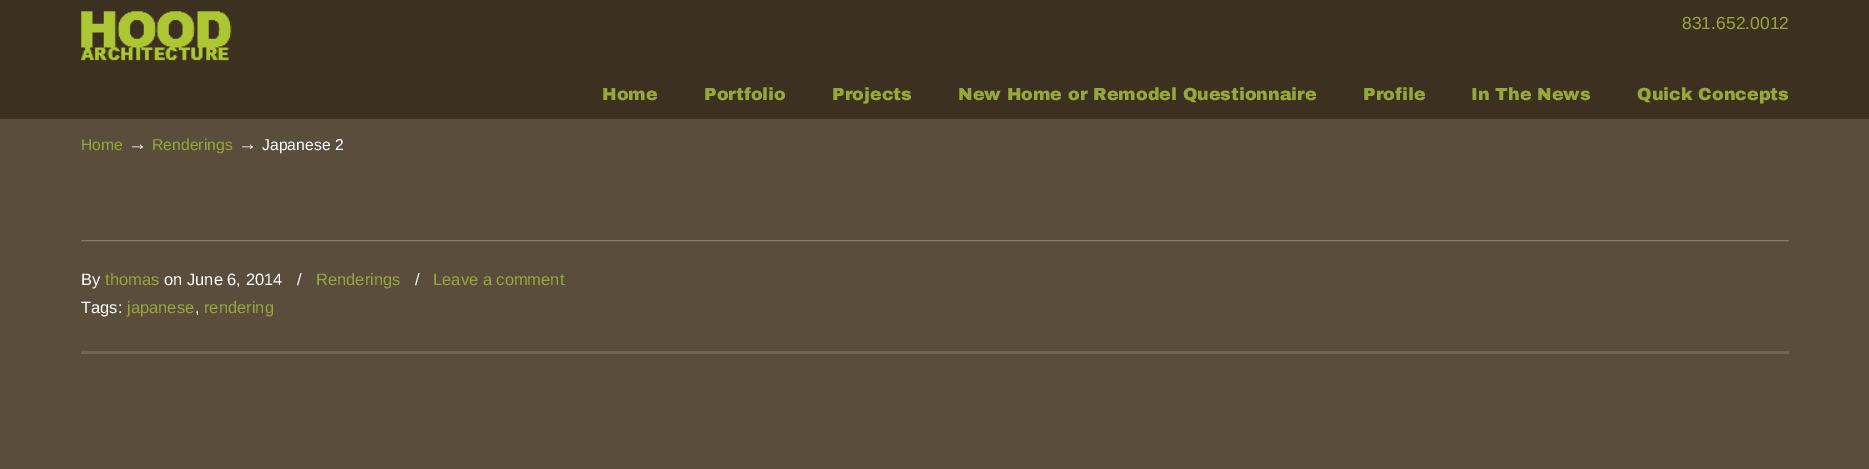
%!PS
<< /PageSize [1869 469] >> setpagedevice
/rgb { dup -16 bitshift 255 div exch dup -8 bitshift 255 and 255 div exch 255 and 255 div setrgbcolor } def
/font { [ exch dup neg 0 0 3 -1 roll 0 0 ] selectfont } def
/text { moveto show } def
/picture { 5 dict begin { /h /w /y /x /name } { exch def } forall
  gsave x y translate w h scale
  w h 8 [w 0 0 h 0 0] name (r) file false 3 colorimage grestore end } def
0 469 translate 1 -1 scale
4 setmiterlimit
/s1 { /LiberationSans-Regular 17.5 font 16#97A73C rgb } def
/s2 { /ArchivoBlack-Black 17.5 font 16#97A73C rgb } def
/s3 { /LiberationSans-Regular 15.75 font 16#97A73C rgb } def
/s4 { /LiberationSans-Regular 19 font 16#FFFFFF rgb } def
/s5 { /LiberationSans-Regular 15.75 font 16#FFFFFF rgb } def
/s6 { /LiberationSans-Regular 16.5 font 16#FFFFFF rgb } def
/s7 { /LiberationSans-Regular 16.5 font 16#97A73C rgb } def
16#5A4D3B rgb
0 0 1869 469 rectfill
16#3C3120 rgb
0 0 1869 119 rectfill
(pic1.raw) 81 11 151 50 picture
s1
(831.652.0012) 1682 29 text
s2
(Home) 602 100 text
(Portfolio) 704 100 text
(Projects) 832 100 text
(New Home or Remodel Questionnaire) 958 100 text
(Profile) 1363 100 text
(In The News) 1471 100 text
(Quick Concepts) 1637 100 text
s3
(Home) 81 150 text
s4
(→) 128 150 text
s3
(Renderings) 152 150 text
s4
(→) 238 150 text
s5
(Japanese 2) 262 150 text
(pic2.raw) 81 240 1708 2 picture
s6
(By) 81 285 text
s7
(thomas) 105 285 text
s6
(on June 6, 2014) 164 285 text
(/) 297 285 text
s7
(Renderings) 316 285 text
s6
(/) 415 285 text
s7
(Leave a comment) 433 285 text
s6
(Tags:) 81 313 text
s7
(japanese) 127 313 text
s6
(,) 195 313 text
s7
(rendering) 204 313 text
16#6F6556 rgb
81 351 1708 3 rectfill
showpage
